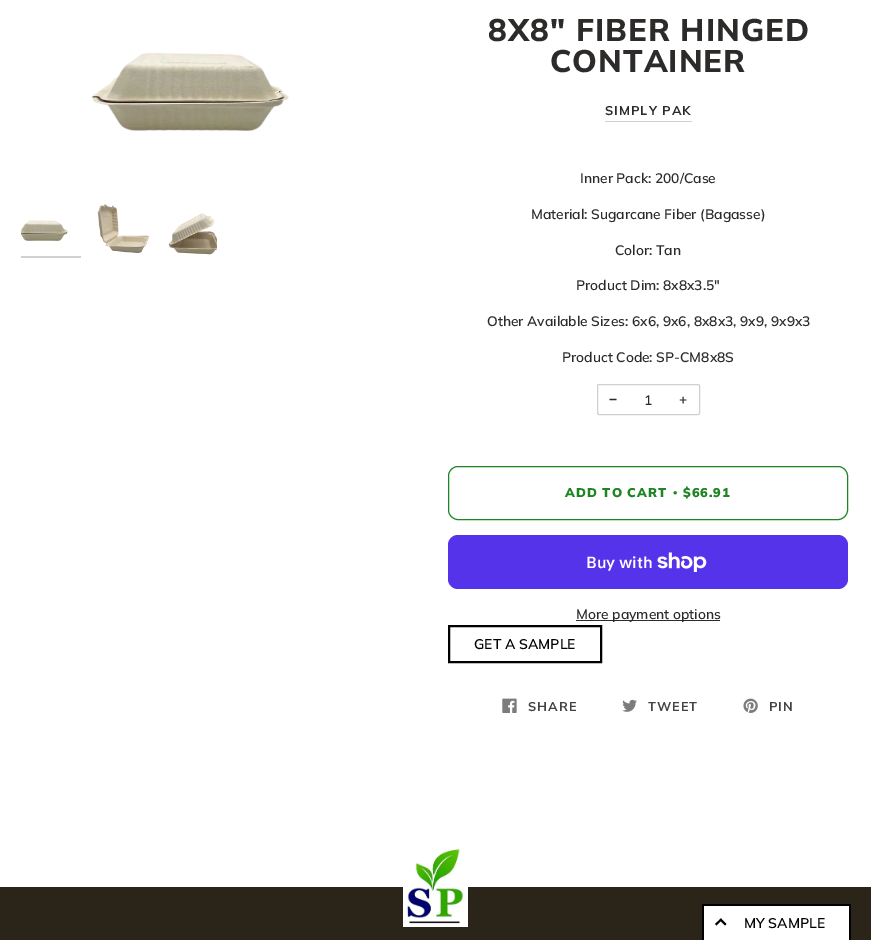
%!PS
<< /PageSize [871 940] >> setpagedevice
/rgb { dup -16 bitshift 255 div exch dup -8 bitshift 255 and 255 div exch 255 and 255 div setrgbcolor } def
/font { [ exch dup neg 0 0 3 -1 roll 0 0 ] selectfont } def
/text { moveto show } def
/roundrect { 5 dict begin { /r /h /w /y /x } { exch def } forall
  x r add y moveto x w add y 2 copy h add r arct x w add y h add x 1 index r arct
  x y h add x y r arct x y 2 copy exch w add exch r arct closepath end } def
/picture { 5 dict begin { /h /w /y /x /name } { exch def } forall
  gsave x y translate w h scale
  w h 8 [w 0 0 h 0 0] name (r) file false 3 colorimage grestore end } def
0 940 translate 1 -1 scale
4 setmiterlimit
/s1 { /Muli-SemiBold 13.75 font 16#2C2B29 rgb } def
/s2 { /LiberationSans-Bold 13.75 font 16#2C2B29 rgb } def
/s3 { /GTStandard-SemiBold 16 font 16#FFFFFF rgb } def
/s4 { /Muli-SemiBold 14 font 16#000000 rgb } def
16#FFFFFF rgb
0 0 871 940 rectfill
(pic1.raw) 92 52 197 79 picture
(pic2.raw) 21 220 48 21 picture
16#D0D0CF rgb
21 256 60 2 rectfill
(pic3.raw) 97 204 52 50 picture
(pic4.raw) 168 213 49 42 picture
/Muli-ExtraBold 31.25 font
16#2C2B29 rgb
488 41 moveto 1 0 (8X8" FIBER HINGED) ashow
550 72 moveto 1 0 (CONTAINER) ashow
/Muli-Bold 12.75 font
605 115 moveto 1 0 (SIMPLY PAK) ashow
16#D0D0CF rgb
605 121 87 1 rectfill
s1
(Inner Pack: 200/Case) 580 183 text
(Material: Sugarcane Fiber \(Bagasse\)) 531 219 text
(Color: Tan) 615 255 text
(Product Dim: 8x8x3.5") 576 290 text
(Other Available Sizes: 6x6, 9x6, 8x8x3, 9x9, 9x9x3) 487 326 text
(Product Code: SP-CM8x8S) 562 362 text
16#D0D0CF rgb
597.5 384.5 102 30 1.5 roundrect stroke
s2
(−) 609 404 text
s1
(1) 644 405 text
(+) 679 404 text
16#1F8424 rgb
448.5 466.5 399 53 9.5 roundrect stroke
/Muli-Black 12.75 font
565 497 moveto 1 0 (ADD TO CART) ashow
/LiberationSerif-Bold 12.75 font
673 497 moveto 1 0 (•) ashow
/Muli-Black 12.75 font
683 497 moveto 1 0 ($66.91) ashow
16#5433EB rgb
448 535 400 54 10 roundrect fill
s3
(Buy with) 586 568 text
(pic5.raw) 657 552 50 20 picture
16#2C2B29 rgb
576 620 144 1 rectfill
s1
(More payment options) 576 619 text
16#000000 rgb
2 setlinewidth
449 626 152 36 rectstroke
s4
(GET A SAMPLE) 474 649 text
(pic6.raw) 502 698 15 15 picture
/Muli-Bold 12.75 font
16#444241 rgb
528 711 moveto 1 0 (SHARE) ashow
(pic7.raw) 622 699 15 13 picture
648 711 moveto 1 0 (TWEET) ashow
(pic8.raw) 743 698 15 15 picture
769 711 moveto 1 0 (PIN) ashow
16#2B2418 rgb
0 887 871 53 rectfill
(pic9.raw) 403 848 65 79 picture
16#FFFFFF rgb
704 906 145 34 rectfill
16#000000 rgb
702 904 149 2 rectfill
849 904 2 36 rectfill
702 904 2 36 rectfill
721 918.5 moveto 726.5 924 lineto 725 925.5 lineto 719.5 920 lineto closepath fill
721 918.5 moveto 722 920 lineto 716.5 925.5 lineto 715 924 lineto closepath fill
s4
(MY SAMPLE) 744 928 text
showpage
